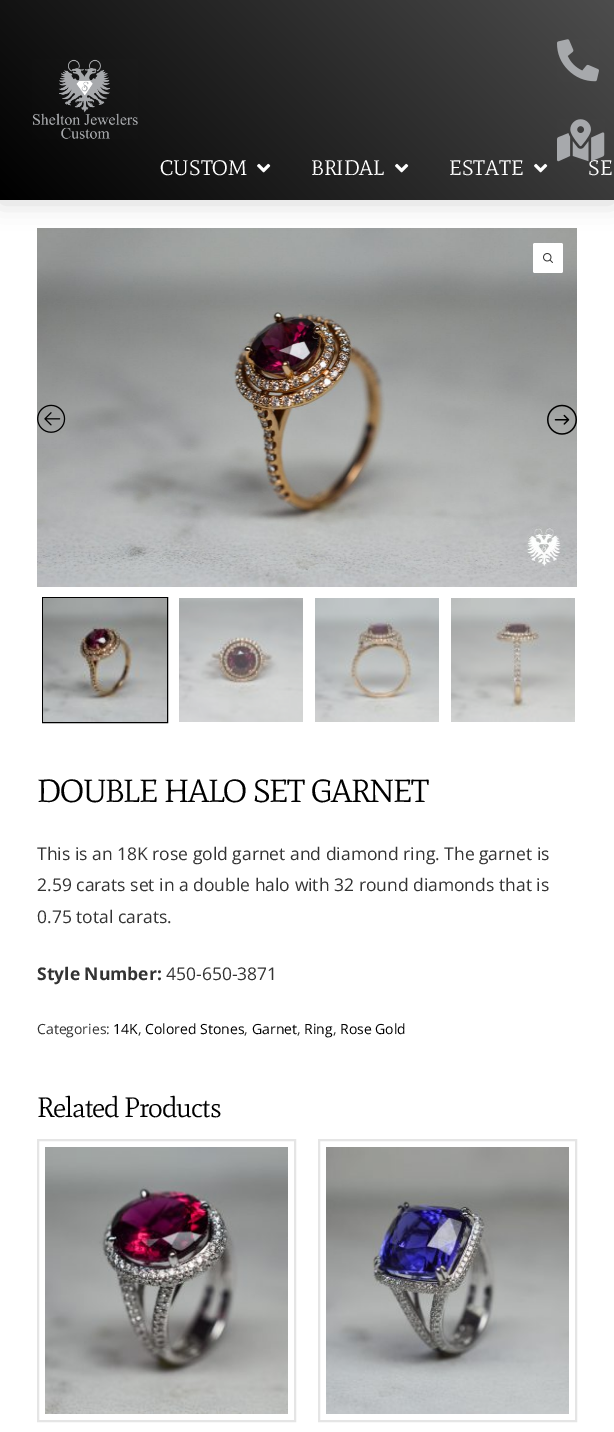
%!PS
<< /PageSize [614 1432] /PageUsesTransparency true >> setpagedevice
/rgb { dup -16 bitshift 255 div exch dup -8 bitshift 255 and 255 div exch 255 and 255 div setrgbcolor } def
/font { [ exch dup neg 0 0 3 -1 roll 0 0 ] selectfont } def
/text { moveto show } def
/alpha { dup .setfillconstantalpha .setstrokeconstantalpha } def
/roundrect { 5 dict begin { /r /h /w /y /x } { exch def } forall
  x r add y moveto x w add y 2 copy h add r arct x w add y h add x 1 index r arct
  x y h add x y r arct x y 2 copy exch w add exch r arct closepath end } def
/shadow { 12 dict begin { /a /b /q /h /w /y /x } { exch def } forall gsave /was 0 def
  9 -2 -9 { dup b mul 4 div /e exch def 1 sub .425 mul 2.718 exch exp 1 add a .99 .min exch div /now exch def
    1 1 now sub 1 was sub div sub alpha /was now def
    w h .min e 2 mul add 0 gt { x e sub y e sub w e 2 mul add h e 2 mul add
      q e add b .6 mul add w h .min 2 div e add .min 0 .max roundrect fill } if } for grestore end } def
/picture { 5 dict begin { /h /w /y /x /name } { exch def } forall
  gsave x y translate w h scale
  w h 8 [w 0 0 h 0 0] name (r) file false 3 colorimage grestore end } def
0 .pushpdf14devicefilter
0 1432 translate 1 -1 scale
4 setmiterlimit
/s1 { /Mate-Regular 21 font 16#FFFFFF rgb } def
/s2 { /OpenSans-Regular 17.5 font 16#333333 rgb } def
/s3 { /OpenSans-Bold 17.5 font 16#333333 rgb } def
/s4 { /OpenSans-Regular 14 font 16#333333 rgb } def
/s5 { /OpenSans-Regular 14 font 16#000000 rgb } def
16#FFFFFF rgb
0 0 614 1432 rectfill
(pic7.raw) 37 228 540 359 picture
16#000000 rgb
0 3 614 200 0 12.5 0.15 shadow
gsave 0 0 moveto 614 0 lineto 614 200 lineto 0 200 lineto closepath clip newpath
<< /ShadingType 2 /ColorSpace /DeviceRGB /Coords [104 304 511 -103] /Extend [true true] /Function << /FunctionType 2 /Domain [0 1] /C0 [0 0 0] /C1 [0.302 0.302 0.302] /N 1 >> >> shfill grestore
(pic1.raw) 32 59 106 80 picture
(pic2.raw) 557 39 42 43 picture
s1
(SE) 588 175 text
(pic3.raw) 557 119 48 43 picture
(CUSTOM) 160 175 text
(pic4.raw) 257 163 14 10 picture
(BRIDAL) 311 175 text
(pic5.raw) 395 163 14 10 picture
(ESTATE) 449 175 text
(pic6.raw) 534 163 14 10 picture
533 243 30 30 2 roundrect fill
(pic8.raw) 543 253 10 10 picture
(pic9.raw) 37 404 29 29 picture
(pic10.raw) 547 404 30 31 picture
16#000000 rgb
42.5 597.5 125 125 rectstroke
(pic11.raw) 43 598 124 124 picture
(pic12.raw) 179 598 124 124 picture
(pic13.raw) 315 598 124 124 picture
(pic14.raw) 451 598 124 124 picture
/Mate-Regular 32 font
37 802 moveto -1.1 0 (DOUBLE HALO SET GARNET) ashow
s2
(This is an 18K rose gold garnet and diamond ring. The garnet is) 37 860 text
(2.59 carats set in a double halo with 32 round diamonds that is) 37 891 text
(0.75 total carats.) 37 923 text
s3
(Style Number:) 37 980 text
s2
(450-650-3871) 166 980 text
s4
(Categories:) 37 1034 text
s5
(14K) 113 1034 text
s4
(,) 138 1034 text
s5
(Colored Stones) 145 1034 text
s4
(,) 244 1034 text
s5
(Garnet) 252 1034 text
s4
(,) 297 1034 text
s5
(Ring) 304 1034 text
s4
(,) 333 1034 text
s5
(Rose Gold) 340 1034 text
/Mate-Regular 28 font
37 1117 moveto -1 0 (Related Products) ashow
16#E5E5E5 rgb
2 setlinewidth
38 1140 257 281 rectstroke
(pic15.raw) 45 1147 243 267 picture
319 1140 257 281 rectstroke
(pic16.raw) 326 1147 243 267 picture
.poppdf14devicefilter showpage
